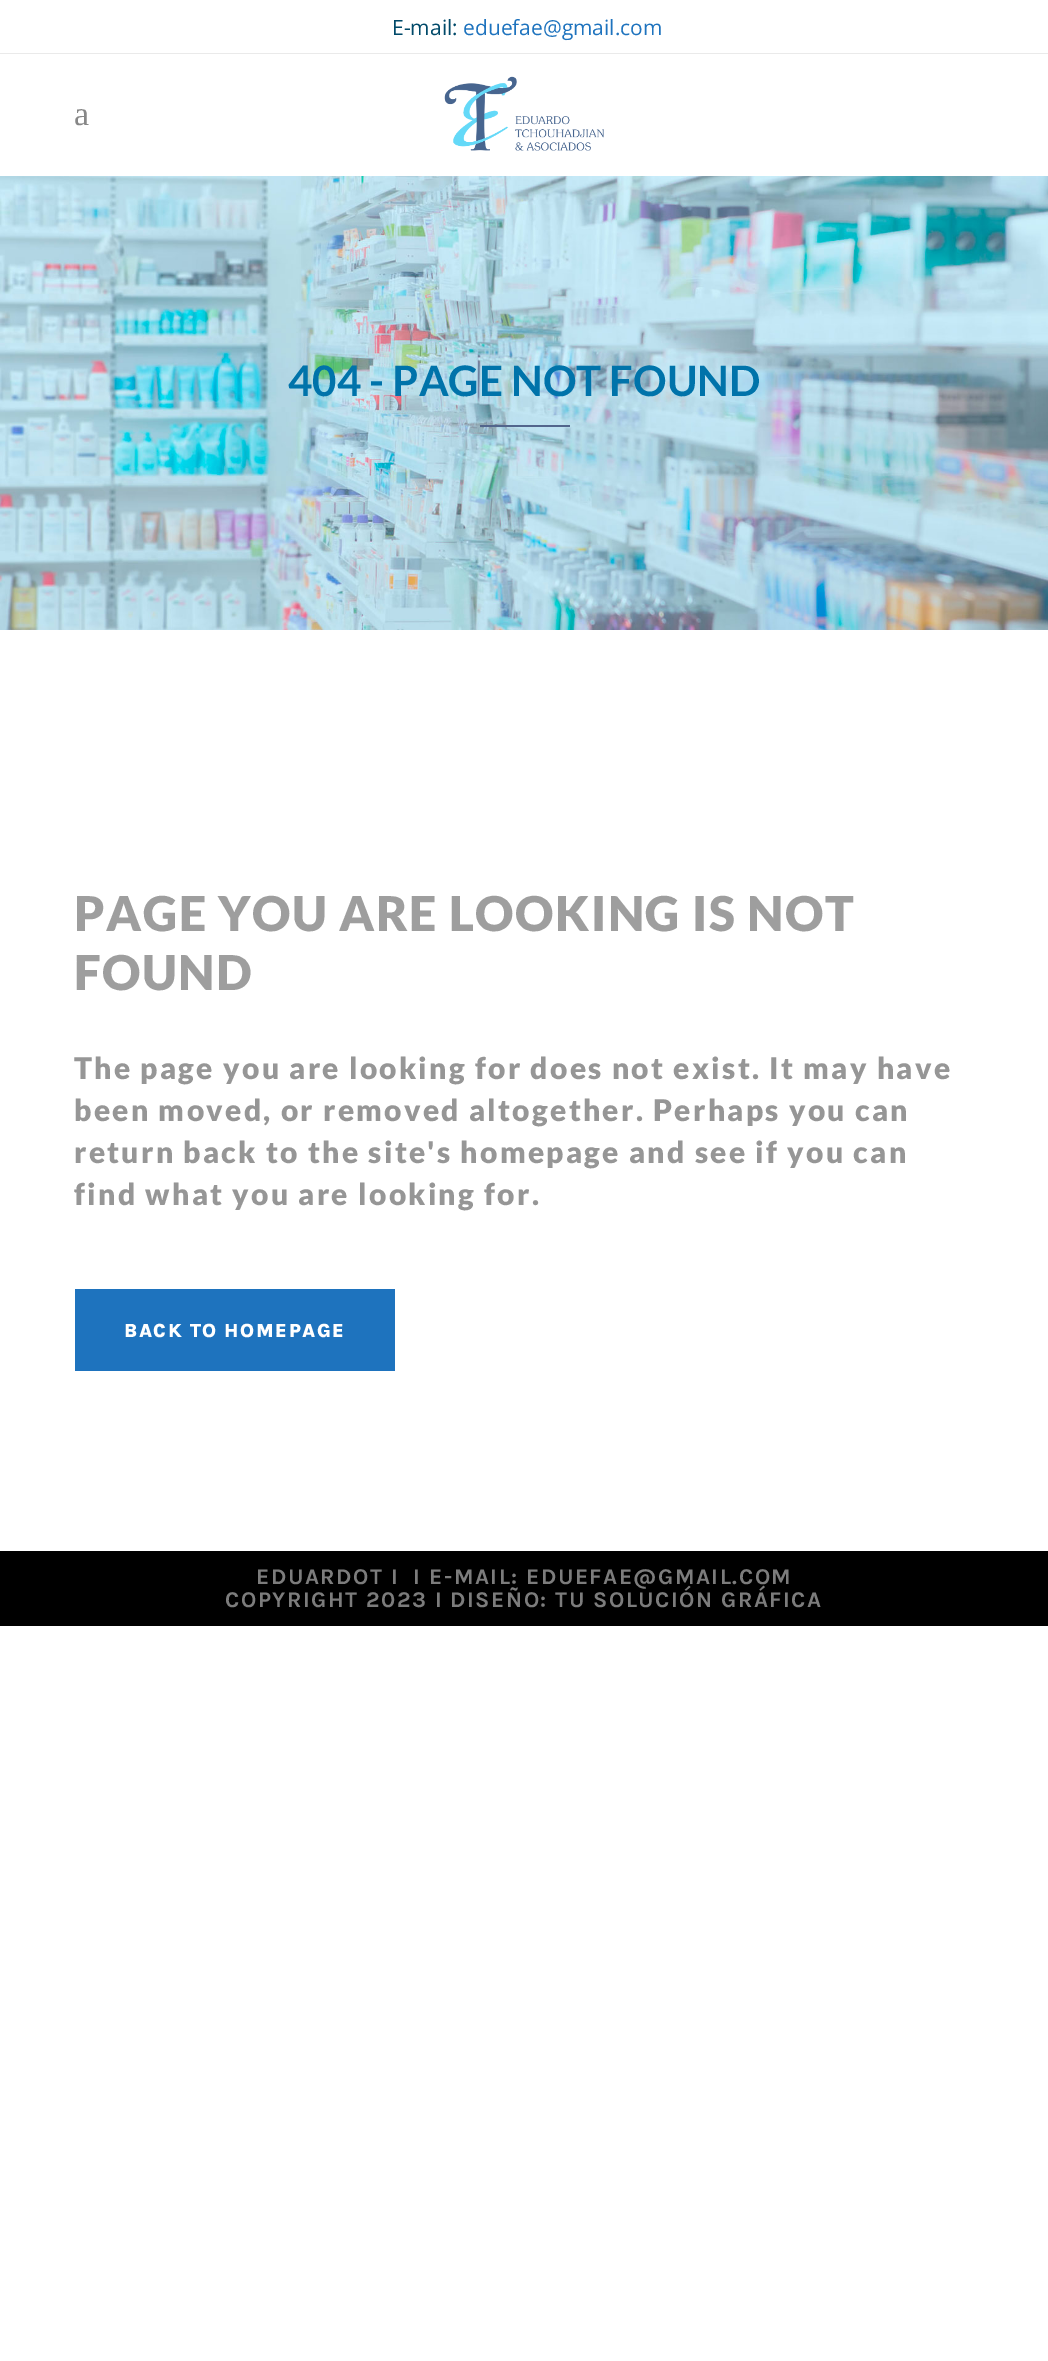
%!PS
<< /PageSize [1048 2361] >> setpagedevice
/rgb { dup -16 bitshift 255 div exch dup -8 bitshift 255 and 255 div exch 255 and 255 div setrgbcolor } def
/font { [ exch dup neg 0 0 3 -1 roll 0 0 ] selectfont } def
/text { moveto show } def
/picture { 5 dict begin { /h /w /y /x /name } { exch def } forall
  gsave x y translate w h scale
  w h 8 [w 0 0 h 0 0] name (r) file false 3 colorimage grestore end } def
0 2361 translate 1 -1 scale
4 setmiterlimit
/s1 { /OpenSans-Regular 21 font 16#004969 rgb } def
/s2 { /OpenSans-Regular 21 font 16#1E73BE rgb } def
/s3 { /LiberationSerif-Regular 34 font 16#878787 rgb } def
/s4 { /Lato-Bold 42 font 16#0073AA rgb } def
16#FFFFFF rgb
0 0 1048 2361 rectfill
16#EAEAEA rgb
0 53 1048 1 rectfill
s1
(E-mail:) 392 35 text
s2
(eduefae@gmail.com) 463 35 text
s3
(a) 74 125 text
(pic1.raw) 444 76 160 75 picture
(pic2.raw) 0 176 1048 454 picture
s4
(404 - PAGE NOT FOUND) 288 396 text
16#52658C rgb
480 425 90 2 rectfill
/Lato-Black 48 font
16#9E9E9E rgb
74 931 moveto 1.5 0 (PAGE YOU ARE LOOKING IS NOT) ashow
74 990 moveto 1.5 0 (FOUND) ashow
/Lato-Black 30 font
16#969696 rgb
74 1079 moveto 2.25 0 (The page you are looking for does not exist. It may have) ashow
74 1121 moveto 2.25 0 (been moved, or removed altogether. Perhaps you can) ashow
74 1163 moveto 2.25 0 (return back to the site's homepage and see if you can) ashow
74 1205 moveto 2.25 0 (find what you are looking for.) ashow
16#1E73BE rgb
75 1289 320 82 rectfill
/Karla-ExtraBold 19.5 font
16#FFFFFF rgb
124 1337 moveto 1.5 0 (BACK TO HOMEPAGE) ashow
16#000000 rgb
0 1551 1048 75 rectfill
/Karla-Bold 22.5 font
16#7C7C7C rgb
256 1584 moveto 1.5 0 (EDUARDOT I  I E-MAIL: EDUEFAE@GMAIL.COM) ashow
225 1607 moveto 1.5 0 (COPYRIGHT 2023 I DISEÑO: TU SOLUCIÓN GRÁFICA) ashow
showpage
